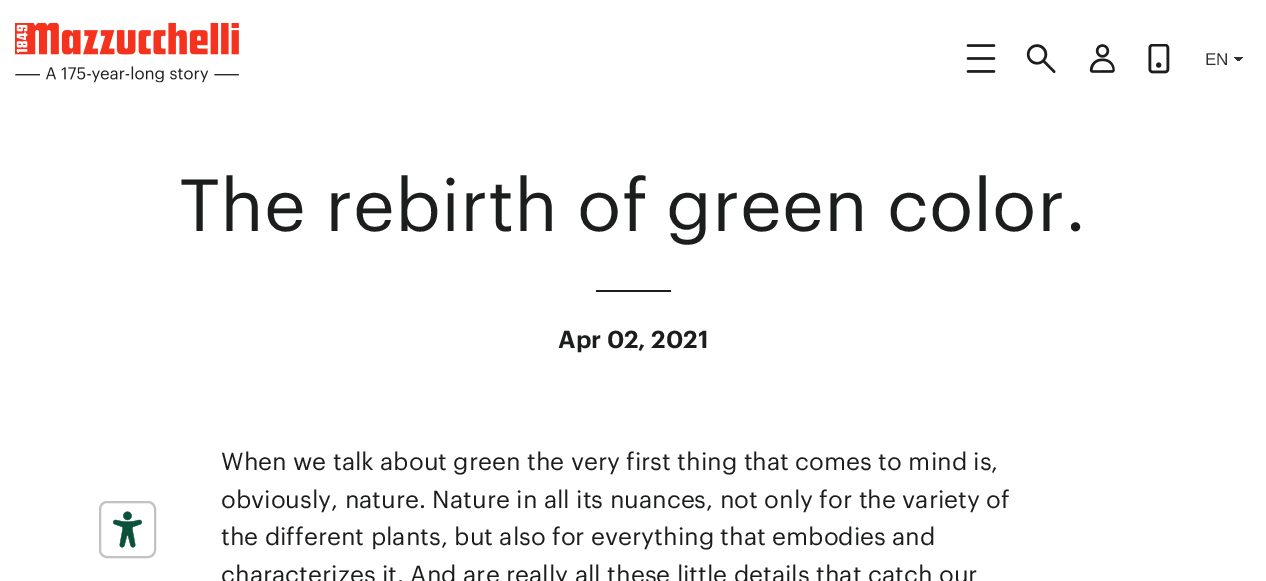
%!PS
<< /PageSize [1266 581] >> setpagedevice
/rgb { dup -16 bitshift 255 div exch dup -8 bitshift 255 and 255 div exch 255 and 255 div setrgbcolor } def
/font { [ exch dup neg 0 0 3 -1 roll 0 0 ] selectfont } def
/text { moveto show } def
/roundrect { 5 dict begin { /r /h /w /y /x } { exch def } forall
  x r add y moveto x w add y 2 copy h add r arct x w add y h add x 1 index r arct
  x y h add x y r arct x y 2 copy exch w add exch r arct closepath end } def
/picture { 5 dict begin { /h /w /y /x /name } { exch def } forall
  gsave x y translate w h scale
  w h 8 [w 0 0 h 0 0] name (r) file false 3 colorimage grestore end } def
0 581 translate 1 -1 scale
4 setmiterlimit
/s1 { /LiberationSans-Regular 17 font 16#333333 rgb } def
/s2 { /Graphik-Regular 72 font 16#1C1D1D rgb } def
/s3 { /Graphik-SemiBold 24 font 16#1C1D1D rgb } def
/s4 { /Graphik-Regular 24 font 16#1C1D1D rgb } def
16#FFFFFF rgb
0 0 1266 581 rectfill
(pic1.raw) 113 511 29 37 picture
16#C2C2C2 rgb
2 setlinewidth
100 502 55 55 7 roundrect stroke
(pic2.raw) 15 23 224 60 picture
(pic3.raw) 966 44 30 29 picture
(pic4.raw) 1026 44 30 30 picture
(pic5.raw) 1089 44 26 29 picture
(pic6.raw) 1148 44 22 30 picture
gsave 1239 57 moveto 1245 57 lineto 1245 61 lineto 1239 61 lineto closepath clip newpath
<< /ShadingType 2 /ColorSpace /DeviceRGB /Coords [1239 56 1245 62] /Extend [true true] /Function << /FunctionType 3 /Domain [0 1] /Functions [<< /FunctionType 2 /Domain [0 1] /C0 [0.2 0.2 0.2] /C1 [0.2 0.2 0.2] /N 1 >> << /FunctionType 2 /Domain [0 1] /C0 [1 1 1] /C1 [1 1 1] /N 1 >>] /Bounds [0.5] /Encode [0 1 0 1] >> >> shfill grestore
gsave 1233 57 moveto 1239 57 lineto 1239 61 lineto 1233 61 lineto closepath clip newpath
<< /ShadingType 2 /ColorSpace /DeviceRGB /Coords [1233 62 1239 56] /Extend [true true] /Function << /FunctionType 3 /Domain [0 1] /Functions [<< /FunctionType 2 /Domain [0 1] /C0 [1 1 1] /C1 [1 1 1] /N 1 >> << /FunctionType 2 /Domain [0 1] /C0 [0.2 0.2 0.2] /C1 [0.2 0.2 0.2] /N 1 >>] /Bounds [0.5] /Encode [0 1 0 1] >> >> shfill grestore
s1
(EN) 1205 65 text
s2
(The rebirth of green color.) 179 231 text
596 290 75 2 rectfill
s3
(Apr 02, 2021) 558 348 text
s4
(When we talk about green the very first thing that comes to mind is,) 221 470 text
(obviously, nature. Nature in all its nuances, not only for the variety of) 221 508 text
(the different plants, but also for everything that embodies and) 221 545 text
(characterizes it. And are really all these little details that catch our) 221 583 text
showpage
